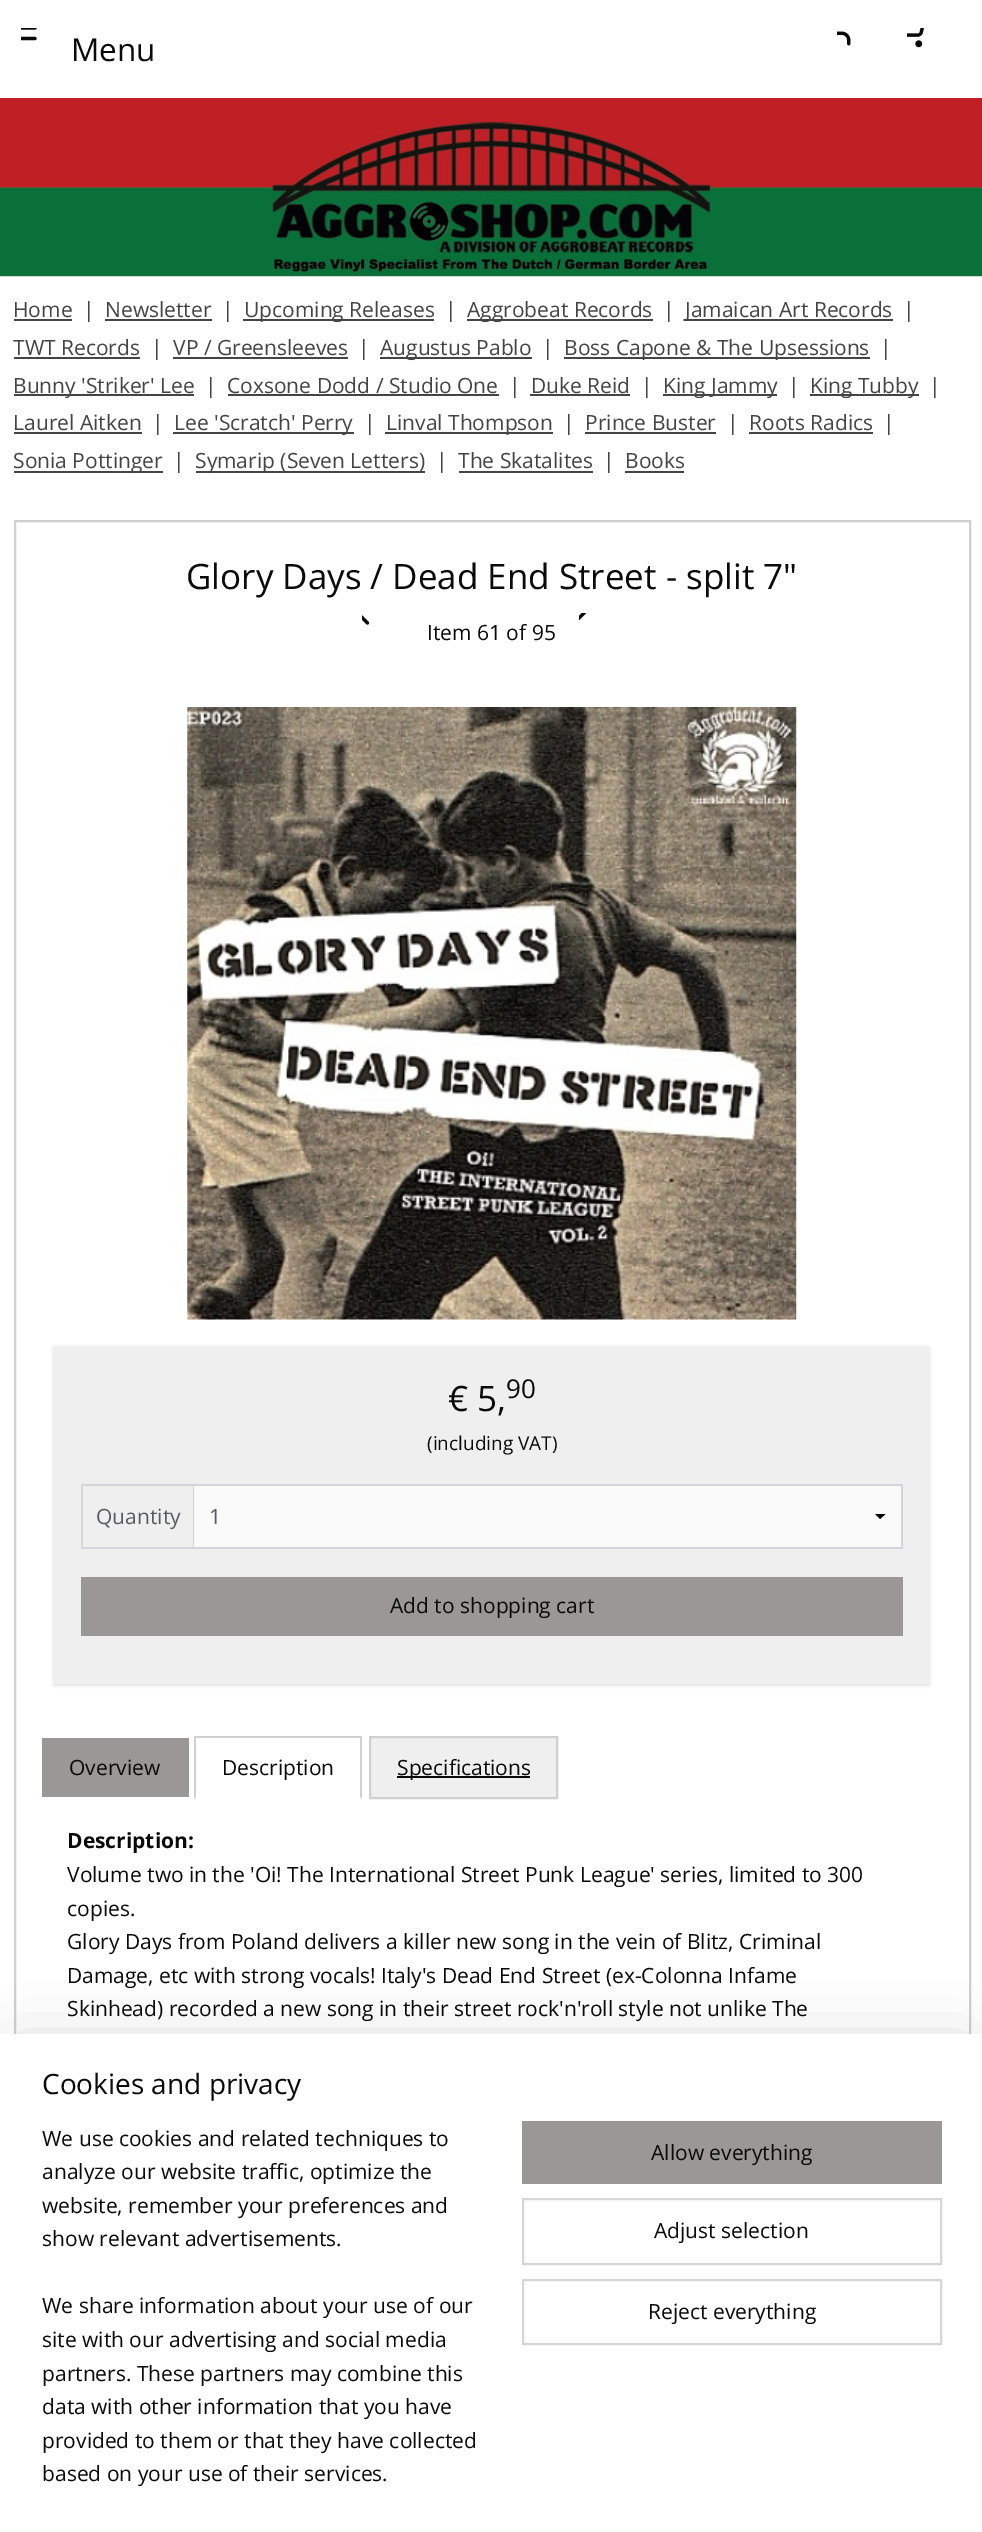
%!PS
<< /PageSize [982 2532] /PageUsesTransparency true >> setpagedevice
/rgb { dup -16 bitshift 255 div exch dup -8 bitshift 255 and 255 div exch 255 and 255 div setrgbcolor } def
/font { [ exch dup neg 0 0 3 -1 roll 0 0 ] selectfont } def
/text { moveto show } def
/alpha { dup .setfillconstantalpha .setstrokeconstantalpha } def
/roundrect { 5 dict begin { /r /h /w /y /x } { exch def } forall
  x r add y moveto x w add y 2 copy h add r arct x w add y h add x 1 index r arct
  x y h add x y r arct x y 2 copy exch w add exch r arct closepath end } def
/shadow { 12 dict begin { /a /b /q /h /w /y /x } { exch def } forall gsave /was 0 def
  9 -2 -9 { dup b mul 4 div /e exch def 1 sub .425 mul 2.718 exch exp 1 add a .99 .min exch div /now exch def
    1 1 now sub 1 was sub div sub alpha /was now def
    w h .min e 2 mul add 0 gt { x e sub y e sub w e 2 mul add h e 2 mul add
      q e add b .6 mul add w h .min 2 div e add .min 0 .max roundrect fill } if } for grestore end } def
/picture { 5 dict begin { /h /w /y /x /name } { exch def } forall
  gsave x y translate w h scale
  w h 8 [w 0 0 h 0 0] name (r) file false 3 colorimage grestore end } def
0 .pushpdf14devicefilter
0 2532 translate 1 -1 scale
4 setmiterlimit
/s1 { /OpenSans-Regular 31.5 font 16#0A0A0A rgb } def
/s2 { /OpenSans-Regular 21 font 16#444444 rgb } def
/s3 { /OpenSans-Regular 35 font 16#0A0A0A rgb } def
/s4 { /OpenSans-Regular 21 font 16#0A0A0A rgb } def
/s5 { /OpenSans-Regular 26 font 16#0A0A0A rgb } def
/s6 { /OpenSans-Regular 19 font 16#0A0A0A rgb } def
/s7 { /OpenSans-Regular 21 font 16#575B62 rgb } def
/s8 { /OpenSans-Bold 21 font 16#0A0A0A rgb } def
/s9 { /OpenSans-Regular 28 font 16#0A0A0A rgb } def
16#FFFFFF rgb
0 0 982 2532 rectfill
(pic1.raw) 21 28 16 13 picture
s1
(Menu) 71 61 text
(pic2.raw) 837 31 14 15 picture
(pic3.raw) 907 28 17 20 picture
(pic4.raw) 0 98 982 179 picture
s2
(Home) 13 317 text
14 319 58 2 rectfill
(|) 83 317 text
(Newsletter) 105 317 text
105 319 107 2 rectfill
(|) 222 317 text
243 319 191 2 rectfill
(Upcoming Releases) 244 317 text
(|) 445 317 text
467 319 186 2 rectfill
(Aggrobeat Records) 467 317 text
(|) 663 317 text
684 319 209 2 rectfill
(Jamaican Art Records) 685 317 text
(|) 903 317 text
(TWT Records) 13 355 text
14 357 126 2 rectfill
(|) 151 355 text
(VP / Greensleeves) 173 355 text
173 357 175 2 rectfill
(|) 358 355 text
380 357 152 2 rectfill
(Augustus Pablo) 380 355 text
(|) 542 355 text
564 357 306 2 rectfill
(Boss Capone & The Upsessions) 564 355 text
(|) 880 355 text
14 394 180 2 rectfill
(Bunny 'Striker' Lee) 13 393 text
(|) 205 393 text
(Coxsone Dodd / Studio One) 227 393 text
228 394 271 2 rectfill
(|) 509 393 text
(Duke Reid) 531 393 text
530 394 100 2 rectfill
(|) 641 393 text
663 394 114 2 rectfill
(King Jammy) 663 393 text
(|) 788 393 text
810 394 109 2 rectfill
(King Tubby) 810 393 text
(|) 929 393 text
(Laurel Aitken) 13 430 text
14 432 128 2 rectfill
(|) 152 430 text
173 432 181 2 rectfill
(Lee 'Scratch' Perry) 174 430 text
(|) 364 430 text
385 432 168 2 rectfill
(Linval Thompson) 386 430 text
(|) 563 430 text
(Prince Buster) 585 430 text
585 432 131 2 rectfill
(|) 727 430 text
(Roots Radics) 749 430 text
749 432 124 2 rectfill
(|) 883 430 text
14 471 149 2 rectfill
(Sonia Pottinger) 13 468 text
(|) 173 468 text
196 471 229 2 rectfill
(Symarip \(Seven Letters\)) 195 468 text
(|) 436 468 text
(The Skatalites) 458 468 text
459 471 134 2 rectfill
(|) 603 468 text
(Books) 625 468 text
625 471 59 2 rectfill
16#D0D0D0 rgb
2 setlinewidth
15 521 955 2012 rectstroke
s3
(Glory Days / Dead End Street - split 7") 186 589 text
(pic5.raw) 362 615 8 10 picture
(pic6.raw) 579 613 8 8 picture
s4
(Item 61 of 95) 427 640 text
(pic7.raw) 187 707 610 613 picture
16#000000 rgb
54 1348 875 337 0 2 0.15 shadow
16#EFEFEF rgb
54 1346 875 338 rectfill
s3
(€ 5,) 448 1411 text
s5
(90) 506 1398 text
s6
(\(including VAT\)) 427 1450 text
16#D3D5D9 rgb
193 1484 1 63 rectfill
81 1484 822 2 rectfill
901 1484 2 65 rectfill
81 1547 822 2 rectfill
81 1484 2 65 rectfill
s7
(Quantity) 96 1524 text
16#FAFAFA rgb
194 1486 707 61 rectfill
16#000000 rgb
885.5 1514 moveto 880 1519 lineto 875 1514 lineto closepath fill
s7
(1) 209 1524 text
16#9B9797 rgb
81 1577 822 59 rectfill
s4
(Add to shopping cart) 390 1613 text
16#9B9797 rgb
42 1738 147 59 rectfill
s4
(Overview) 69 1775 text
16#D0D0D0 rgb
194 1736 168 2 rectfill
362 1736 moveto 362 1799 lineto 360 1797 lineto 360 1738 lineto closepath fill
194 1799 moveto 194 1736 lineto 196 1738 lineto 196 1797 lineto closepath fill
s4
(Description) 222 1775 text
16#EFEFEF rgb
370 1737 moveto 557 1737 lineto 557 1798 lineto 370 1798 lineto closepath gsave fill grestore
16#D0D0D0 rgb
stroke
16#0A0A0A rgb
397 1776 133 2 rectfill
(Specifications) 397 1775 text
s8
(Description:) 67 1848 text
s4
(Volume two in the 'Oi! The International Street Punk League' series, limited to 300) 67 1882 text
(copies.) 67 1916 text
(Glory Days from Poland delivers a killer new song in the vein of Blitz, Criminal) 67 1949 text
(Damage, etc with strong vocals! Italy's Dead End Street \(ex-Colonna Infame) 67 1983 text
(Skinhead\) recorded a new song in their street rock'n'roll style not unlike The) 67 2016 text
16#000000 rgb
18 2051 948 464 0 31.5 0.2 shadow
16#FFFFFF rgb
0 2034 982 498 rectfill
s9
(Cookies and privacy) 42 2094 text
s4
(We use cookies and related techniques to) 42 2146 text
(analyze our website traffic, optimize the) 42 2179 text
(website, remember your preferences and) 42 2213 text
(show relevant advertisements.) 42 2246 text
(We share information about your use of our) 42 2313 text
(site with our advertising and social media) 42 2347 text
(partners. These partners may combine this) 42 2381 text
(data with other information that you have) 42 2414 text
(provided to them or that they have collected) 42 2448 text
(based on your use of their services.) 42 2481 text
16#9B9797 rgb
522 2121 420 63 rectfill
s4
(Allow everything) 651 2160 text
16#D6D6D6 rgb
523 2199 418 65 rectstroke
s4
(Adjust selection) 654 2238 text
16#D6D6D6 rgb
523 2280 418 64 rectstroke
s4
(Reject everything) 648 2319 text
.poppdf14devicefilter showpage
